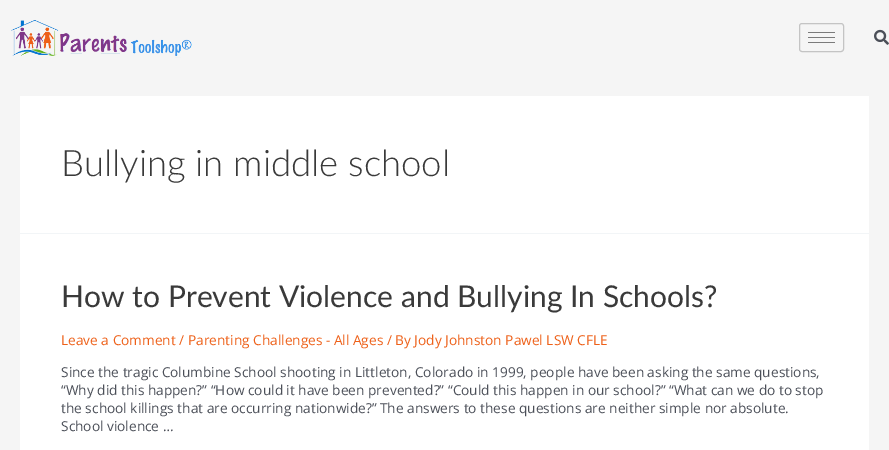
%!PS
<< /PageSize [889 450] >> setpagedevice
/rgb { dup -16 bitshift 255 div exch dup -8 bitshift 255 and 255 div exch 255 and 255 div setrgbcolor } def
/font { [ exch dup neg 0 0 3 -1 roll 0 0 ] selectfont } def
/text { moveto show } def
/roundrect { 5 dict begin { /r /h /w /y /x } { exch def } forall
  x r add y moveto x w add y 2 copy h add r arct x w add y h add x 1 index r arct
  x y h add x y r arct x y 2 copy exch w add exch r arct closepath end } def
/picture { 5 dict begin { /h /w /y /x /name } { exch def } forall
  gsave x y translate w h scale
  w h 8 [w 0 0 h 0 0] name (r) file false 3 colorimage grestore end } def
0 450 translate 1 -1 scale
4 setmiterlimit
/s1 { /Lato-Light 36.5 font 16#3A3A3A rgb } def
/s2 { /Lato-Regular 30 font 16#3A3A3A rgb } def
/s3 { /OpenSans-Regular 13.68 font 16#EE6018 rgb } def
/s4 { /OpenSans-Regular 13.68 font 16#4B4F58 rgb } def
16#F5F5F5 rgb
0 0 889 450 rectfill
(pic1.raw) 11 20 181 38 picture
16#C4C4C4 rgb
799.5 23.5 44 28 2.5 roundrect stroke
16#7B7B7B rgb
808 32 27 1 rectfill
808 37 27 1 rectfill
808 42 27 1 rectfill
(pic2.raw) 874 29 15 16 picture
16#FFFFFF rgb
20 96 849 137 rectfill
16#F2F5F7 rgb
20 233 849 1 rectfill
s1
(Bullying in middle school) 61 176 text
16#FFFFFF rgb
20 234 849 216 rectfill
s2
(How to Prevent Violence and Bullying In Schools?) 61 307 text
s3
(Leave a Comment / Parenting Challenges - All Ages / By Jody Johnston Pawel LSW CFLE) 61 345 text
s4
(Since the tragic Columbine School shooting in Littleton, Colorado in 1999, people have been asking the same questions,) 61 377 text
(“Why did this happen?” “How could it have been prevented?” “Could this happen in our school?” “What can we do to stop) 61 395 text
(the school killings that are occurring nationwide?” The answers to these questions are neither simple nor absolute.) 61 413 text
(School violence …) 61 431 text
showpage
